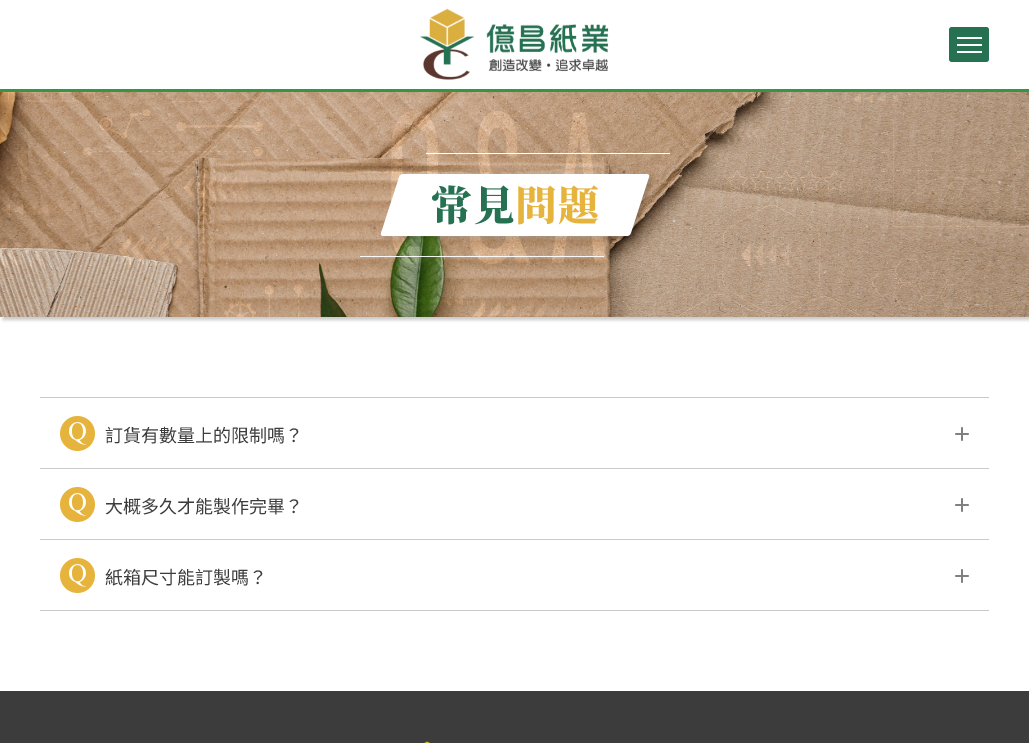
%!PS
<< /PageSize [1029 743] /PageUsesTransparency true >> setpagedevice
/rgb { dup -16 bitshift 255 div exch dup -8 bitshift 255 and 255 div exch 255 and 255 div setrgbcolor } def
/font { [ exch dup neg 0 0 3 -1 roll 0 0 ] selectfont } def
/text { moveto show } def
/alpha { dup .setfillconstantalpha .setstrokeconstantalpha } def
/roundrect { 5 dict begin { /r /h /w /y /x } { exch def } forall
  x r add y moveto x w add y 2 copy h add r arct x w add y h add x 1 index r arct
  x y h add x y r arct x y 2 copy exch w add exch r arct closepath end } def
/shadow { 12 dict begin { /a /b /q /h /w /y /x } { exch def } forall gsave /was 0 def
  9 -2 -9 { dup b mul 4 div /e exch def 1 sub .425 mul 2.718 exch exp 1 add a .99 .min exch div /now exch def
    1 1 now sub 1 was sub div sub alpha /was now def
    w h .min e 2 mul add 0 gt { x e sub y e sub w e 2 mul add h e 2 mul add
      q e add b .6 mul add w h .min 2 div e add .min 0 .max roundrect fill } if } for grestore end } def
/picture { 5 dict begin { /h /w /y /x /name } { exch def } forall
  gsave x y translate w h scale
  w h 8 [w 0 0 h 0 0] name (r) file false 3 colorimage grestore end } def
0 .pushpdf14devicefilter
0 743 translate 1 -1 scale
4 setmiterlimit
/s1 { /NotoSansTC-Regular 18 font 16#3C3C3C rgb } def
16#FFFFFF rgb
0 0 1029 743 rectfill
16#000000 rgb
3 95 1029 225 0 1.5 0.2 shadow
16#349644 rgb
0 89 1029 3 rectfill
(pic1.raw) 420 8 189 72 picture
16#277153 rgb
949 27 40 35 3 roundrect fill
16#FFFFFF rgb
957 37 25 2 rectfill
957 44 25 2 rectfill
957 51 25 2 rectfill
(pic2.raw) 0 92 1029 225 picture
(pic3.raw) 360 153 310 104 picture
16#CACACA rgb
40 397 949 1 rectfill
40 468 949 1 rectfill
(pic4.raw) 60 416 35 35 picture
s1
(訂貨有數量上的限制嗎？) 105 442 text
(pic5.raw) 955 427 14 14 picture
16#CACACA rgb
40 539 949 1 rectfill
(pic4.raw) 60 487 35 35 picture
s1
(大概多久才能製作完畢？) 105 513 text
(pic5.raw) 955 498 14 14 picture
16#CACACA rgb
40 610 949 1 rectfill
(pic4.raw) 60 558 35 35 picture
s1
(紙箱尺寸能訂製嗎？) 105 584 text
(pic5.raw) 955 569 14 14 picture
0 691 1029 52 rectfill
(pic6.raw) 424 741 6 2 picture
.poppdf14devicefilter showpage
